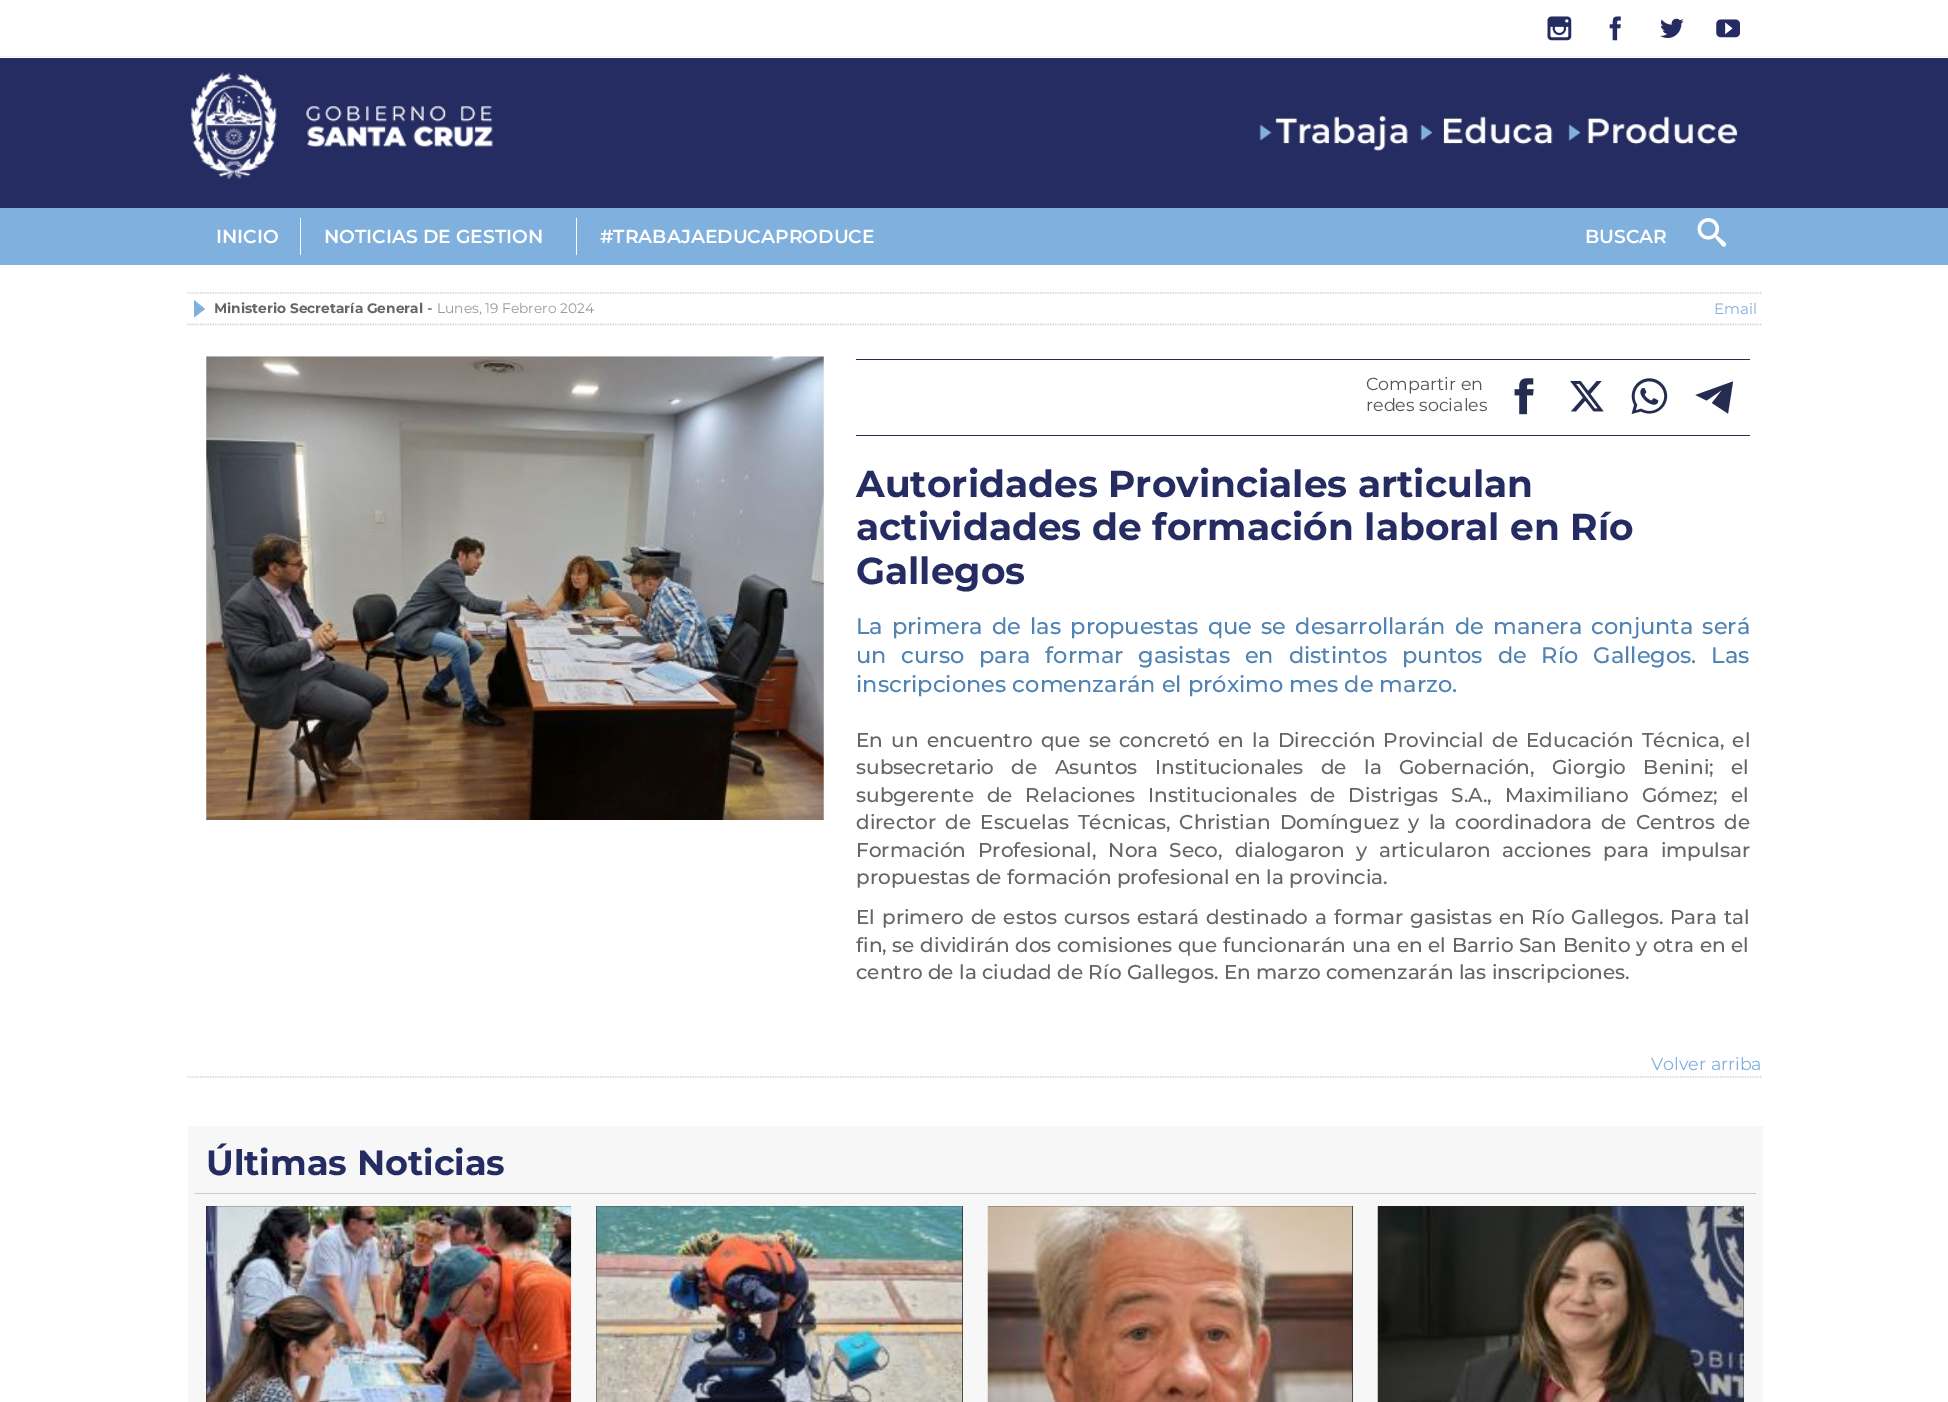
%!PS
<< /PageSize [1948 1402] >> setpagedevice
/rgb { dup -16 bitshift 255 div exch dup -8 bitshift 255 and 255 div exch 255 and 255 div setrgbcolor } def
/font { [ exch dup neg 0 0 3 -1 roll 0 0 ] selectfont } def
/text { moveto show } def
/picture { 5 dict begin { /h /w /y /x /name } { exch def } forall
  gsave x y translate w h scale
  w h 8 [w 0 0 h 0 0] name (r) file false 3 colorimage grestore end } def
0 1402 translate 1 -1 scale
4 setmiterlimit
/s1 { /Montserrat-SemiBold 18.75 font 16#FFFFFF rgb } def
/s2 { /Montserrat-Bold 13.75 font 16#656565 rgb } def
/s3 { /Montserrat-Regular 15 font 16#333333 rgb } def
/s4 { /Montserrat-Regular 13.75 font 16#999999 rgb } def
/s5 { /Montserrat-Regular 15 font 16#80B0DE rgb } def
/s6 { /Montserrat-Regular 17.5 font 16#555555 rgb } def
/s7 { /Montserrat-Bold 37.5 font 16#252C61 rgb } def
/s8 { /Montserrat-Medium 22.5 font 16#5083B3 rgb } def
/s9 { /Montserrat-Medium 20 font 16#656565 rgb } def
/s10 { /Montserrat-Regular 17.5 font 16#80B0DE rgb } def
/s11 { /Montserrat-Bold 35 font 16#252C61 rgb } def
16#FFFFFF rgb
0 0 1948 1402 rectfill
16#F0F0F0 rgb
0 56 1948 1 rectfill
(pic1.raw) 1547 16 25 25 picture
(pic2.raw) 1609 16 12 25 picture
(pic3.raw) 1660 18 24 20 picture
(pic4.raw) 1716 19 24 19 picture
16#252C61 rgb
0 58 1948 150 rectfill
(pic5.raw) 191 72 302 107 picture
(pic6.raw) 1259 115 479 36 picture
16#80B0DE rgb
0 208 1948 57 rectfill
16#FFFFFF rgb
300 218 1 37 rectfill
s1
(INICIO) 216 243 text
576 218 1 37 rectfill
(NOTICIAS DE GESTION) 324 243 text
(#TRABAJAEDUCAPRODUCE) 600 243 text
(BUSCAR) 1585 243 text
(pic7.raw) 1697 218 30 29 picture
16#CCCCCC rgb
1.2 setlinewidth
[1.25 1.25] 0 setdash
187.5 1077 moveto 1762.5 1077 lineto stroke
16#80B0DE rgb
194 317.5 moveto 194 300 lineto 205 309 lineto closepath fill
s2
(Ministerio Secretaría General) 214 313 text
s3
(-) 427 313 text
s4
(Lunes, 19 Febrero 2024) 437 313 text
16#CCCCCC rgb
187.5 293 moveto 1762.5 293 lineto stroke
187.5 324.5 moveto 1762.5 324.5 lineto stroke
s5
(Email) 1714 314 text
(pic8.raw) 206 356 618 464 picture
16#252C61 rgb
856 359 894 1 rectfill
856 435 894 1 rectfill
s6
(Compartir en) 1366 390 text
(redes sociales) 1366 411 text
(pic9.raw) 1514 378 20 37 picture
(pic10.raw) 1570 381 34 31 picture
(pic11.raw) 1631 378 37 36 picture
16#242C4F rgb
1733 381.5 moveto 1695.5 395 lineto 1706.5 400.5 lineto 1722.5 389.5 lineto 1712 403 lineto 1728 413.5 lineto closepath fill
s7
(Autoridades Provinciales articulan) 856 497 text
(actividades de formación laboral en Río) 856 540 text
(Gallegos) 856 584 text
/Montserrat-Medium 22.5 font
16#5083B3 rgb
856 634 moveto 3 0 32 (La primera de las propuestas que se desarrollarán de manera conjunta será) widthshow
856 663 moveto 8.75 0 32 (un curso para formar gasistas en distintos puntos de Río Gallegos. Las) widthshow
(inscripciones comenzarán el próximo mes de marzo.) 856 692 text
/Montserrat-Medium 20 font
16#656565 rgb
856 747 moveto 2.9 0 32 (En un encuentro que se concretó en la Dirección Provincial de Educación Técnica, el) widthshow
856 774 moveto 12 0 32 (subsecretario de Asuntos Institucionales de la Gobernación, Giorgio Benini; el) widthshow
856 802 moveto 7.5 0 32 (subgerente de Relaciones Institucionales de Distrigas S.A., Maximiliano Gómez; el) widthshow
856 829 moveto 3.75 0 32 (director de Escuelas Técnicas, Christian Domínguez y la coordinadora de Centros de) widthshow
856 857 moveto 6.5 0 32 (Formación Profesional, Nora Seco, dialogaron y articularon acciones para impulsar) widthshow
(propuestas de formación profesional en la provincia.) 856 884 text
856 924 moveto 1.6 0 32 (El primero de estos cursos estará destinado a formar gasistas en Río Gallegos. Para tal) widthshow
856 952 moveto 0.3 0 32 (fin, se dividirán dos comisiones que funcionarán una en el Barrio San Benito y otra en el) widthshow
(centro de la ciudad de Río Gallegos. En marzo comenzarán las inscripciones.) 856 979 text
s10
(Volver arriba) 1651 1070 text
16#F7F7F7 rgb
188 1126 1575 276 rectfill
16#CCCCCC rgb
194 1193 1562 1 rectfill
s11
(Últimas Noticias) 206 1175 text
16#252523 rgb
206 1206 365 196 rectfill
(pic12.raw) 206 1206 366 196 picture
596 1206 367 196 rectfill
(pic13.raw) 596 1206 367 196 picture
988 1206 365 196 rectfill
(pic14.raw) 987 1206 366 196 picture
1378 1206 366 196 rectfill
(pic15.raw) 1377 1206 367 196 picture
showpage
